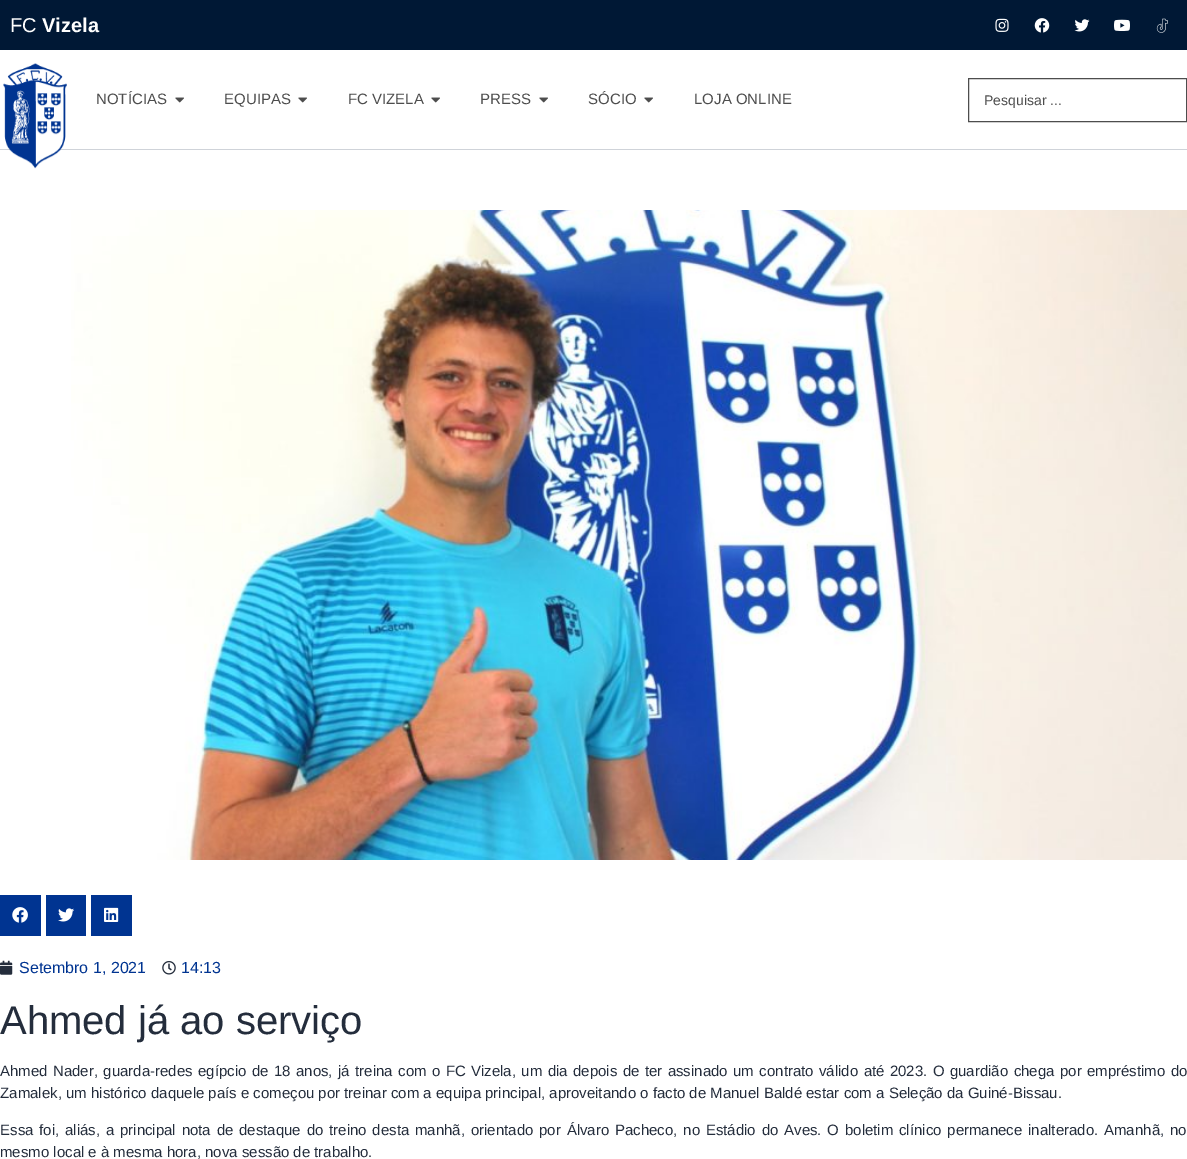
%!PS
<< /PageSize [1187 1159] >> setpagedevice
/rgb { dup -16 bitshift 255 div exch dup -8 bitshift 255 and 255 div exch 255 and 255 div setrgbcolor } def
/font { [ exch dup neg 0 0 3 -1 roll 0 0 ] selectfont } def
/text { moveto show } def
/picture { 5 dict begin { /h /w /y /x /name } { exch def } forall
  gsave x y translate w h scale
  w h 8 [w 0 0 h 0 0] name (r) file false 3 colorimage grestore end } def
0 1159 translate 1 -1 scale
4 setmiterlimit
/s1 { /LiberationSans-Regular 20 font 16#FFFFFF rgb } def
/s2 { /LiberationSans-Bold 20 font 16#FFFFFF rgb } def
/s3 { /LiberationSans-Regular 15 font 16#4D4D4D rgb } def
/s4 { /LiberationSans-Regular 14 font 16#4D4D4D rgb } def
/s5 { /LiberationSans-Regular 16 font 16#003491 rgb } def
/s6 { /LiberationSans-Regular 40 font 16#242D3C rgb } def
/s7 { /LiberationSans-Regular 15 font 16#242D3C rgb } def
16#FFFFFF rgb
0 0 1187 1159 rectfill
16#001835 rgb
0 0 1187 50 rectfill
s1
(FC) 10 32 text
s2
(Vizela) 42 32 text
(pic1.raw) 995 18 14 14 picture
(pic2.raw) 1034 18 16 15 picture
(pic3.raw) 1074 19 16 13 picture
(pic4.raw) 1114 19 16 12 picture
(pic5.raw) 1156 18 12 15 picture
16#CFD3D9 rgb
0 149 1187 1 rectfill
(pic6.raw) 3 63 64 106 picture
s3
(NOTÍCIAS) 96 104 text
(pic7.raw) 175 97 9 6 picture
(EQUIPAS) 224 104 text
(pic7.raw) 298 97 9 6 picture
(FC VIZELA) 348 104 text
(pic7.raw) 431 97 9 6 picture
(PRESS) 480 104 text
(pic7.raw) 539 97 9 6 picture
(SÓCIO) 588 104 text
(pic7.raw) 644 97 9 6 picture
(LOJA ONLINE) 694 104 text
968.5 78.5 218 43 rectstroke
s4
(Pesquisar ...) 984 105 text
(pic8.raw) 71 210 1116 650 picture
16#003491 rgb
0 895 41 41 rectfill
(pic9.raw) 12 907 16 16 picture
46 895 40 41 rectfill
(pic10.raw) 58 908 16 14 picture
91 895 41 41 rectfill
(pic11.raw) 104 907 15 15 picture
(pic12.raw) 0 960 13 15 picture
s5
(Setembro 1, 2021) 19 973 text
(pic13.raw) 162 961 14 14 picture
(14:13) 181 973 text
s6
(Ahmed já ao serviço) 0 1034 text
/LiberationSans-Regular 15 font
0 1076 moveto 1.25 0 32 (Ahmed Nader, guarda-redes egípcio de 18 anos, já treina com o FC Vizela, um dia depois de ter assinado um contrato válido até 2023. O guardião chega por empréstimo do) widthshow
(Zamalek, um histórico daquele país e começou por treinar com a equipa principal, aproveitando o facto de Manuel Baldé estar com a Seleção da Guiné-Bissau.) 0 1098 text
0 1135 moveto 1.65 0 32 (Essa foi, aliás, a principal nota de destaque do treino desta manhã, orientado por Álvaro Pacheco, no Estádio do Aves. O boletim clínico permanece inalterado. Amanhã, no) widthshow
(mesmo local e à mesma hora, nova sessão de trabalho.) 0 1157 text
showpage
